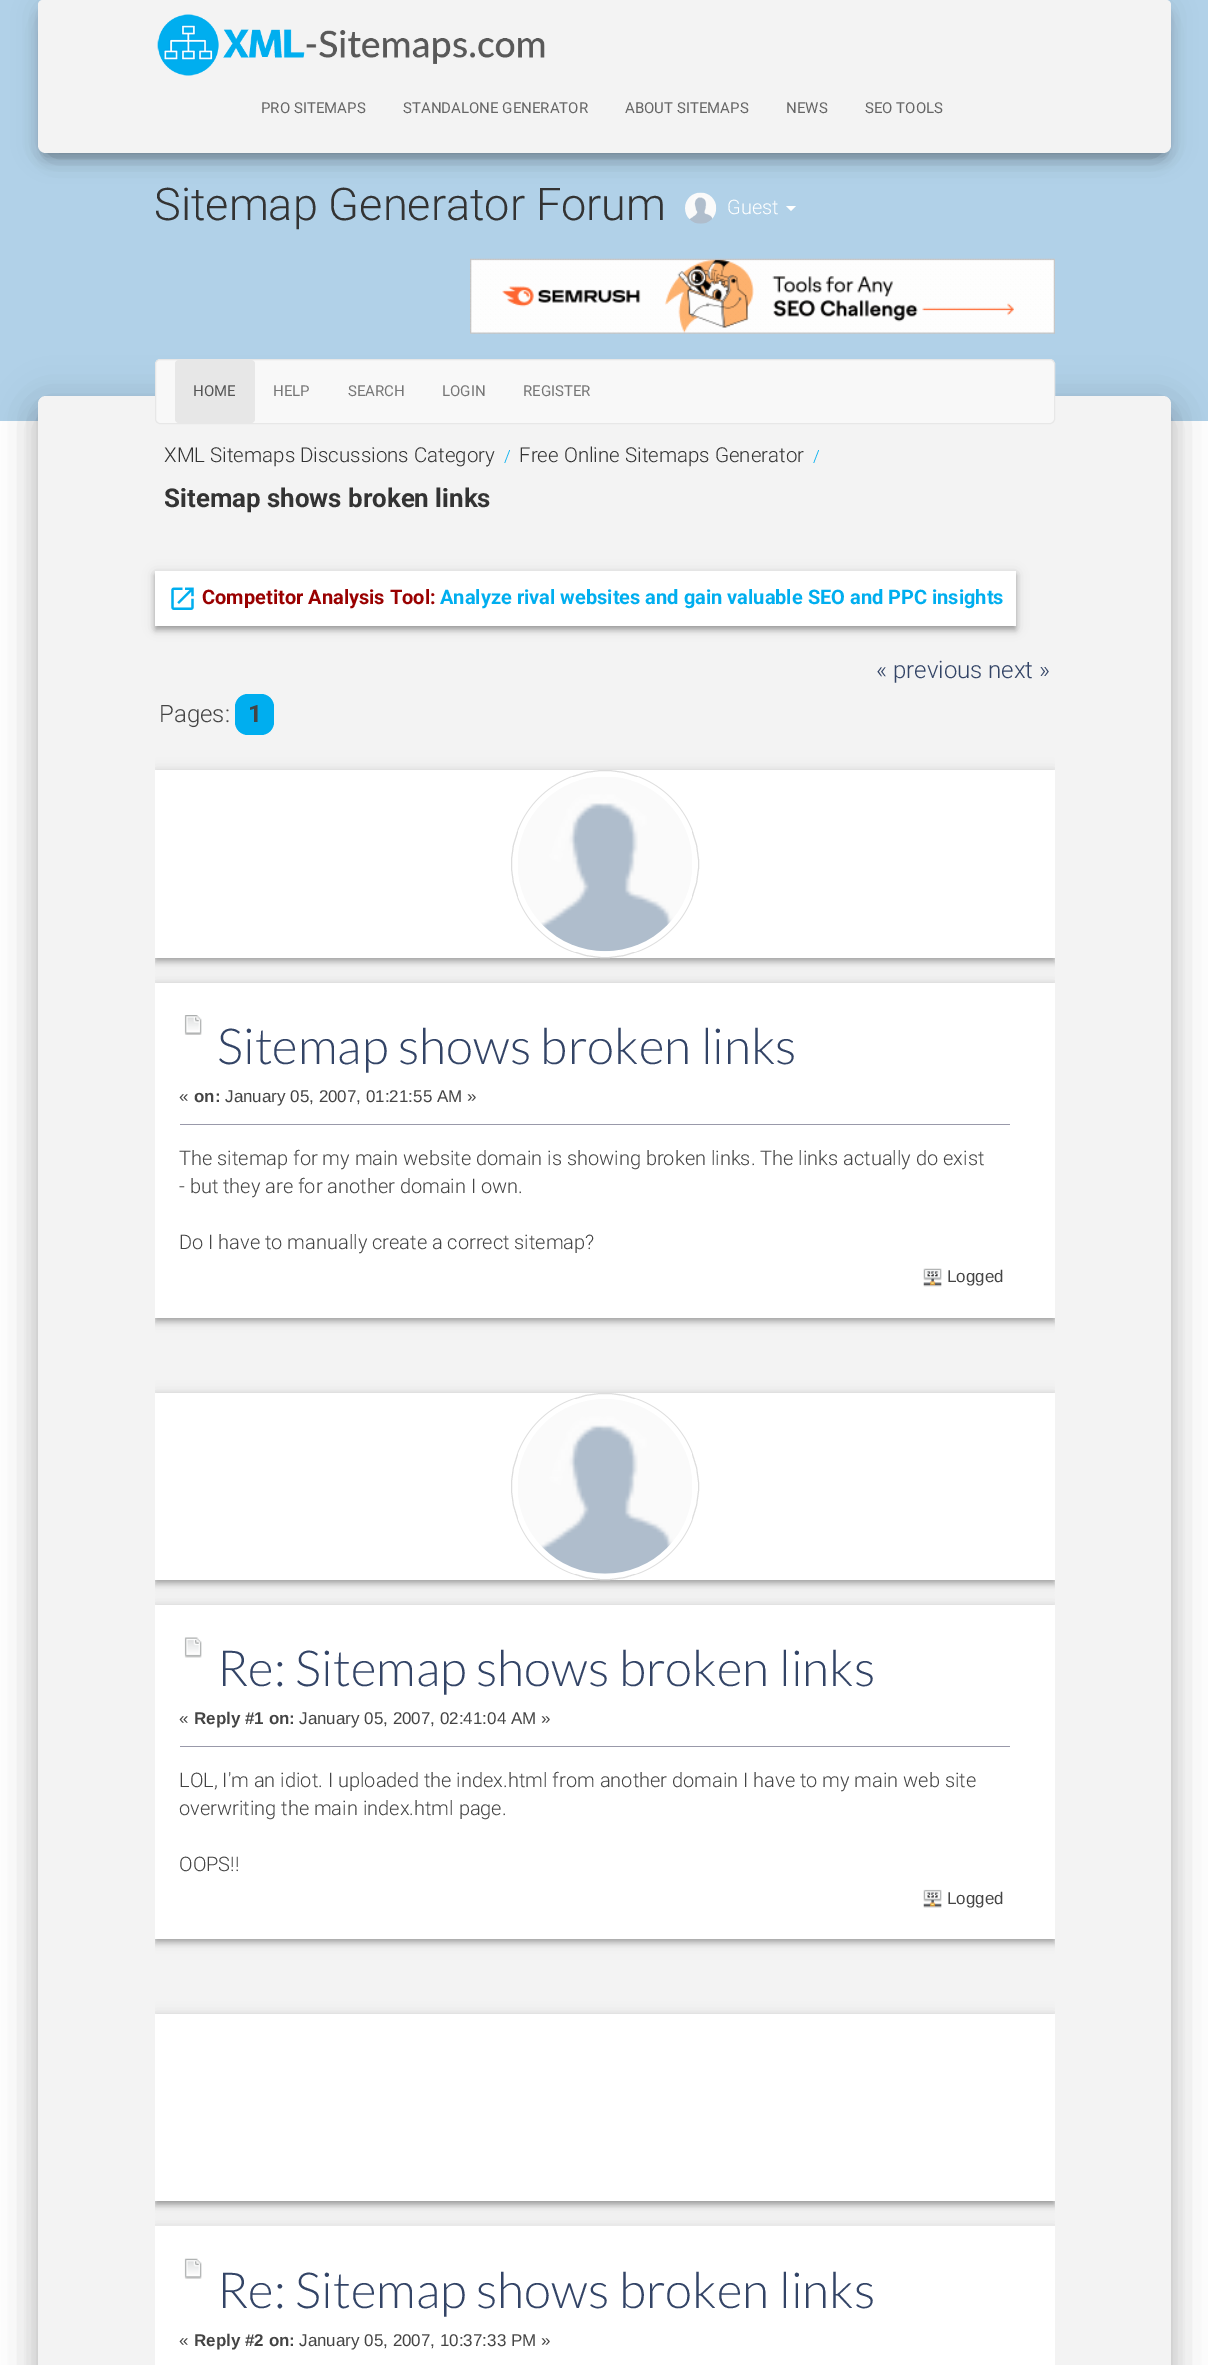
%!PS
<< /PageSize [1208 2365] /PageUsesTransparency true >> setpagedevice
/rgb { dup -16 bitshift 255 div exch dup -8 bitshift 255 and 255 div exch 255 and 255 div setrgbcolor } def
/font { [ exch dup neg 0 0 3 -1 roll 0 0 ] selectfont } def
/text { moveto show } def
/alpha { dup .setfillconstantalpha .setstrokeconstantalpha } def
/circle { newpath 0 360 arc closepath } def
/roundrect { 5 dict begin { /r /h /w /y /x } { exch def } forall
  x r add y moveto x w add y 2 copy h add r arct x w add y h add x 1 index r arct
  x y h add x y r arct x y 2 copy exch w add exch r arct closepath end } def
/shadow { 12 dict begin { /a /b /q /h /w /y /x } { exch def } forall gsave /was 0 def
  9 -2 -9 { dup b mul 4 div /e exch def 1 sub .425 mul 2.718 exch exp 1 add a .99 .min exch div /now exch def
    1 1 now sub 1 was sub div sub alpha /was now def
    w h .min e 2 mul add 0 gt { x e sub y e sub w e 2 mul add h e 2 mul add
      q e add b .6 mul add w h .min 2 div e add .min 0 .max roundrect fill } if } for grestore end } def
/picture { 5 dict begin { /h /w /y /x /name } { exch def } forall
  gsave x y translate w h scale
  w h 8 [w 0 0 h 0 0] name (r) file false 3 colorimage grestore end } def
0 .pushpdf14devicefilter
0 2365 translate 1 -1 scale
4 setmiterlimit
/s1 { /Roboto-Regular 15 font 16#666666 rgb } def
/s2 { /Roboto-Light 45 font 16#333333 rgb } def
/s3 { /Roboto-Light 20 font 16#FFFFFF rgb } def
/s4 { /Roboto-Regular 15 font 16#555555 rgb } def
/s5 { /Roboto-Regular 15 font 16#777777 rgb } def
/s6 { /Roboto-Light 20.5 font 16#333333 rgb } def
/s7 { /Roboto-Light 17 font 16#00AEEF rgb } def
/s8 { /Roboto-Bold 25.9 font 16#333333 rgb } def
/s9 { /Roboto-Bold 20 font 16#990000 rgb } def
/s10 { /Roboto-Bold 20 font 16#00AEEF rgb } def
/s11 { /Roboto-Light 24 font 16#334466 rgb } def
/s12 { /Roboto-Light 24 font 16#444444 rgb } def
/s13 { /Roboto-Bold 24 font 16#444444 rgb } def
/s14 { /Lato-Light 49.7 font 16#334466 rgb } def
/s15 { /LiberationSans-Regular 17 font 16#444444 rgb } def
/s16 { /LiberationSans-Bold 17 font 16#444444 rgb } def
/s17 { /Roboto-Light 20 font 16#444444 rgb } def
16#FFFFFF rgb
0 0 1208 2365 rectfill
16#B1D1E8 rgb
0 0 1208 421 rectfill
16#000000 rgb
44 16 1121 140 1 6 0.2 shadow
(pic2.raw) 685 192 32 32 picture
38 4 1133 152 8 12.5 0.12 shadow
53 28 1103 122 0 12.5 0.42 shadow
16#F3F3F3 rgb
43 0 moveto 1166 0 lineto 1169 0 1171 2 1171 5 curveto 1171 145 lineto 1171 149.5 1167.5 153 1163 153 curveto 46 153 lineto 41.5 153 38 149.5 38 145 curveto 38 5 lineto 38 2 40 0 43 0 curveto closepath fill
(pic1.raw) 157 14 388 62 picture
s1
(PRO SITEMAPS) 261 113 text
(STANDALONE GENERATOR) 403 113 text
(ABOUT SITEMAPS) 625 113 text
(NEWS) 786 113 text
(SEO TOOLS) 865 113 text
s2
(Sitemap Generator Forum) 154 220 text
s3
(Guest) 727 214 text
786 206 moveto 796 206 lineto 791 211 lineto closepath fill
(pic3.raw) 470 258 585 76 picture
16#000000 rgb
44 413 1121 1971 1 6 0.2 shadow
31 398 1147 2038 14 19 0.12 shadow
35 414 1139 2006 10 15 0.14 shadow
16#F3F3F3 rgb
38 396 1133 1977 8 roundrect fill
16#F8F8F8 rgb
155.5 359.5 899 64 4.5 roundrect gsave fill grestore
16#E7E7E7 rgb
stroke
175 360 80 63 4 roundrect fill
s4
(HOME) 193 396 text
s5
(HELP) 273 396 text
(SEARCH) 348 396 text
(LOGIN) 442 396 text
(REGISTER) 523 396 text
s6
(XML Sitemaps Discussions Category) 164 462 text
s7
(/) 504 462 text
s6
(Free Online Sitemaps Generator) 519 462 text
s7
(/) 813 462 text
s8
(Sitemap shows broken links) 164 507 text
16#000000 rgb
156 575 859 53 0 2.5 0.2 shadow
155 573 861 55 0 6 0.12 shadow
155 576 861 55 0 3 0.14 shadow
16#FFFFFF rgb
155 571 861 55 rectfill
(pic4.raw) 171 587 23 23 picture
s9
(Competitor Analysis Tool:) 202 604 text
s10
(Analyze rival websites and gain valuable SEO and PPC insights) 440 604 text
s11
(« previous next ») 876 678 text
s12
(Pages:) 159 722 text
16#00AEEF rgb
235 694 39 41 13 roundrect fill
s13
(1) 248 722 text
gsave
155 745 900 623 rectclip
16#000000 rgb
156 774 898 185 0 2.5 0.2 shadow
155 771 900 188 0 6 0.12 shadow
155 775 900 188 0 3 0.14 shadow
grestore
16#FFFFFF rgb
155 770 900 188 rectfill
16#DDDDDD rgb
605 864 93.5 circle stroke
(pic5.raw) 518 777 174 175 picture
gsave
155 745 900 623 rectclip
16#000000 rgb
156 986 898 333 0 2.5 0.2 shadow
155 984 900 335 0 6 0.12 shadow
155 988 900 335 0 3 0.14 shadow
grestore
16#FFFFFF rgb
155 983 900 335 rectfill
(pic6.raw) 184 1015 18 20 picture
s14
(Sitemap shows broken links) 217 1064 text
s15
(«) 179 1102 text
s16
(on:) 194 1102 text
s15
(January 05, 2007, 01:21:55 AM ») 225 1102 text
16#9999AA rgb
180 1124 830 1 rectfill
s17
(The sitemap for my main website domain is showing broken links. The links actually do exist) 179 1165 text
(- but they are for another domain I own.) 179 1193 text
(Do I have to manually create a correct sitemap?) 179 1249 text
(pic7.raw) 923 1268 19 19 picture
s15
(Logged) 947 1282 text
gsave
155 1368 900 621 rectclip
16#000000 rgb
156 1396 898 185 0 2.5 0.2 shadow
155 1394 900 187 0 6 0.12 shadow
155 1398 900 187 0 3 0.14 shadow
grestore
16#FFFFFF rgb
155 1393 900 187 rectfill
16#DDDDDD rgb
511.5 1393.5 187 186 93 roundrect stroke
(pic8.raw) 518 1399 174 175 picture
gsave
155 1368 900 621 rectclip
16#000000 rgb
156 1609 898 331 0 2.5 0.2 shadow
155 1606 900 334 0 6 0.12 shadow
155 1610 900 334 0 3 0.14 shadow
grestore
16#FFFFFF rgb
155 1605 900 334 rectfill
(pic9.raw) 184 1637 18 21 picture
s14
(Re: Sitemap shows broken links) 217 1686 text
s15
(«) 179 1724 text
s16
(Reply #1 on:) 194 1724 text
s15
(January 05, 2007, 02:41:04 AM ») 299 1724 text
16#9999AA rgb
180 1746 830 1 rectfill
s17
(LOL, I'm an idiot. I uploaded the index.html from another domain I have to my main web site) 179 1787 text
(overwriting the main index.html page.) 179 1815 text
(OOPS!!) 179 1871 text
(pic10.raw) 923 1889 19 19 picture
s15
(Logged) 947 1904 text
gsave
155 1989 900 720 rectclip
16#000000 rgb
156 2018 898 185 0 2.5 0.2 shadow
155 2015 900 188 0 6 0.12 shadow
155 2019 900 187 0 3 0.14 shadow
grestore
16#FFFFFF rgb
155 2014 900 187 rectfill
gsave
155 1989 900 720 rectclip
16#000000 rgb
155 2228 900 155 0 6 0.12 shadow
grestore
155 2226 900 139 rectfill
(pic11.raw) 184 2258 18 21 picture
s14
(Re: Sitemap shows broken links) 217 2308 text
s15
(«) 179 2346 text
s16
(Reply #2 on:) 194 2346 text
s15
(January 05, 2007, 10:37:33 PM ») 299 2346 text
.poppdf14devicefilter showpage
